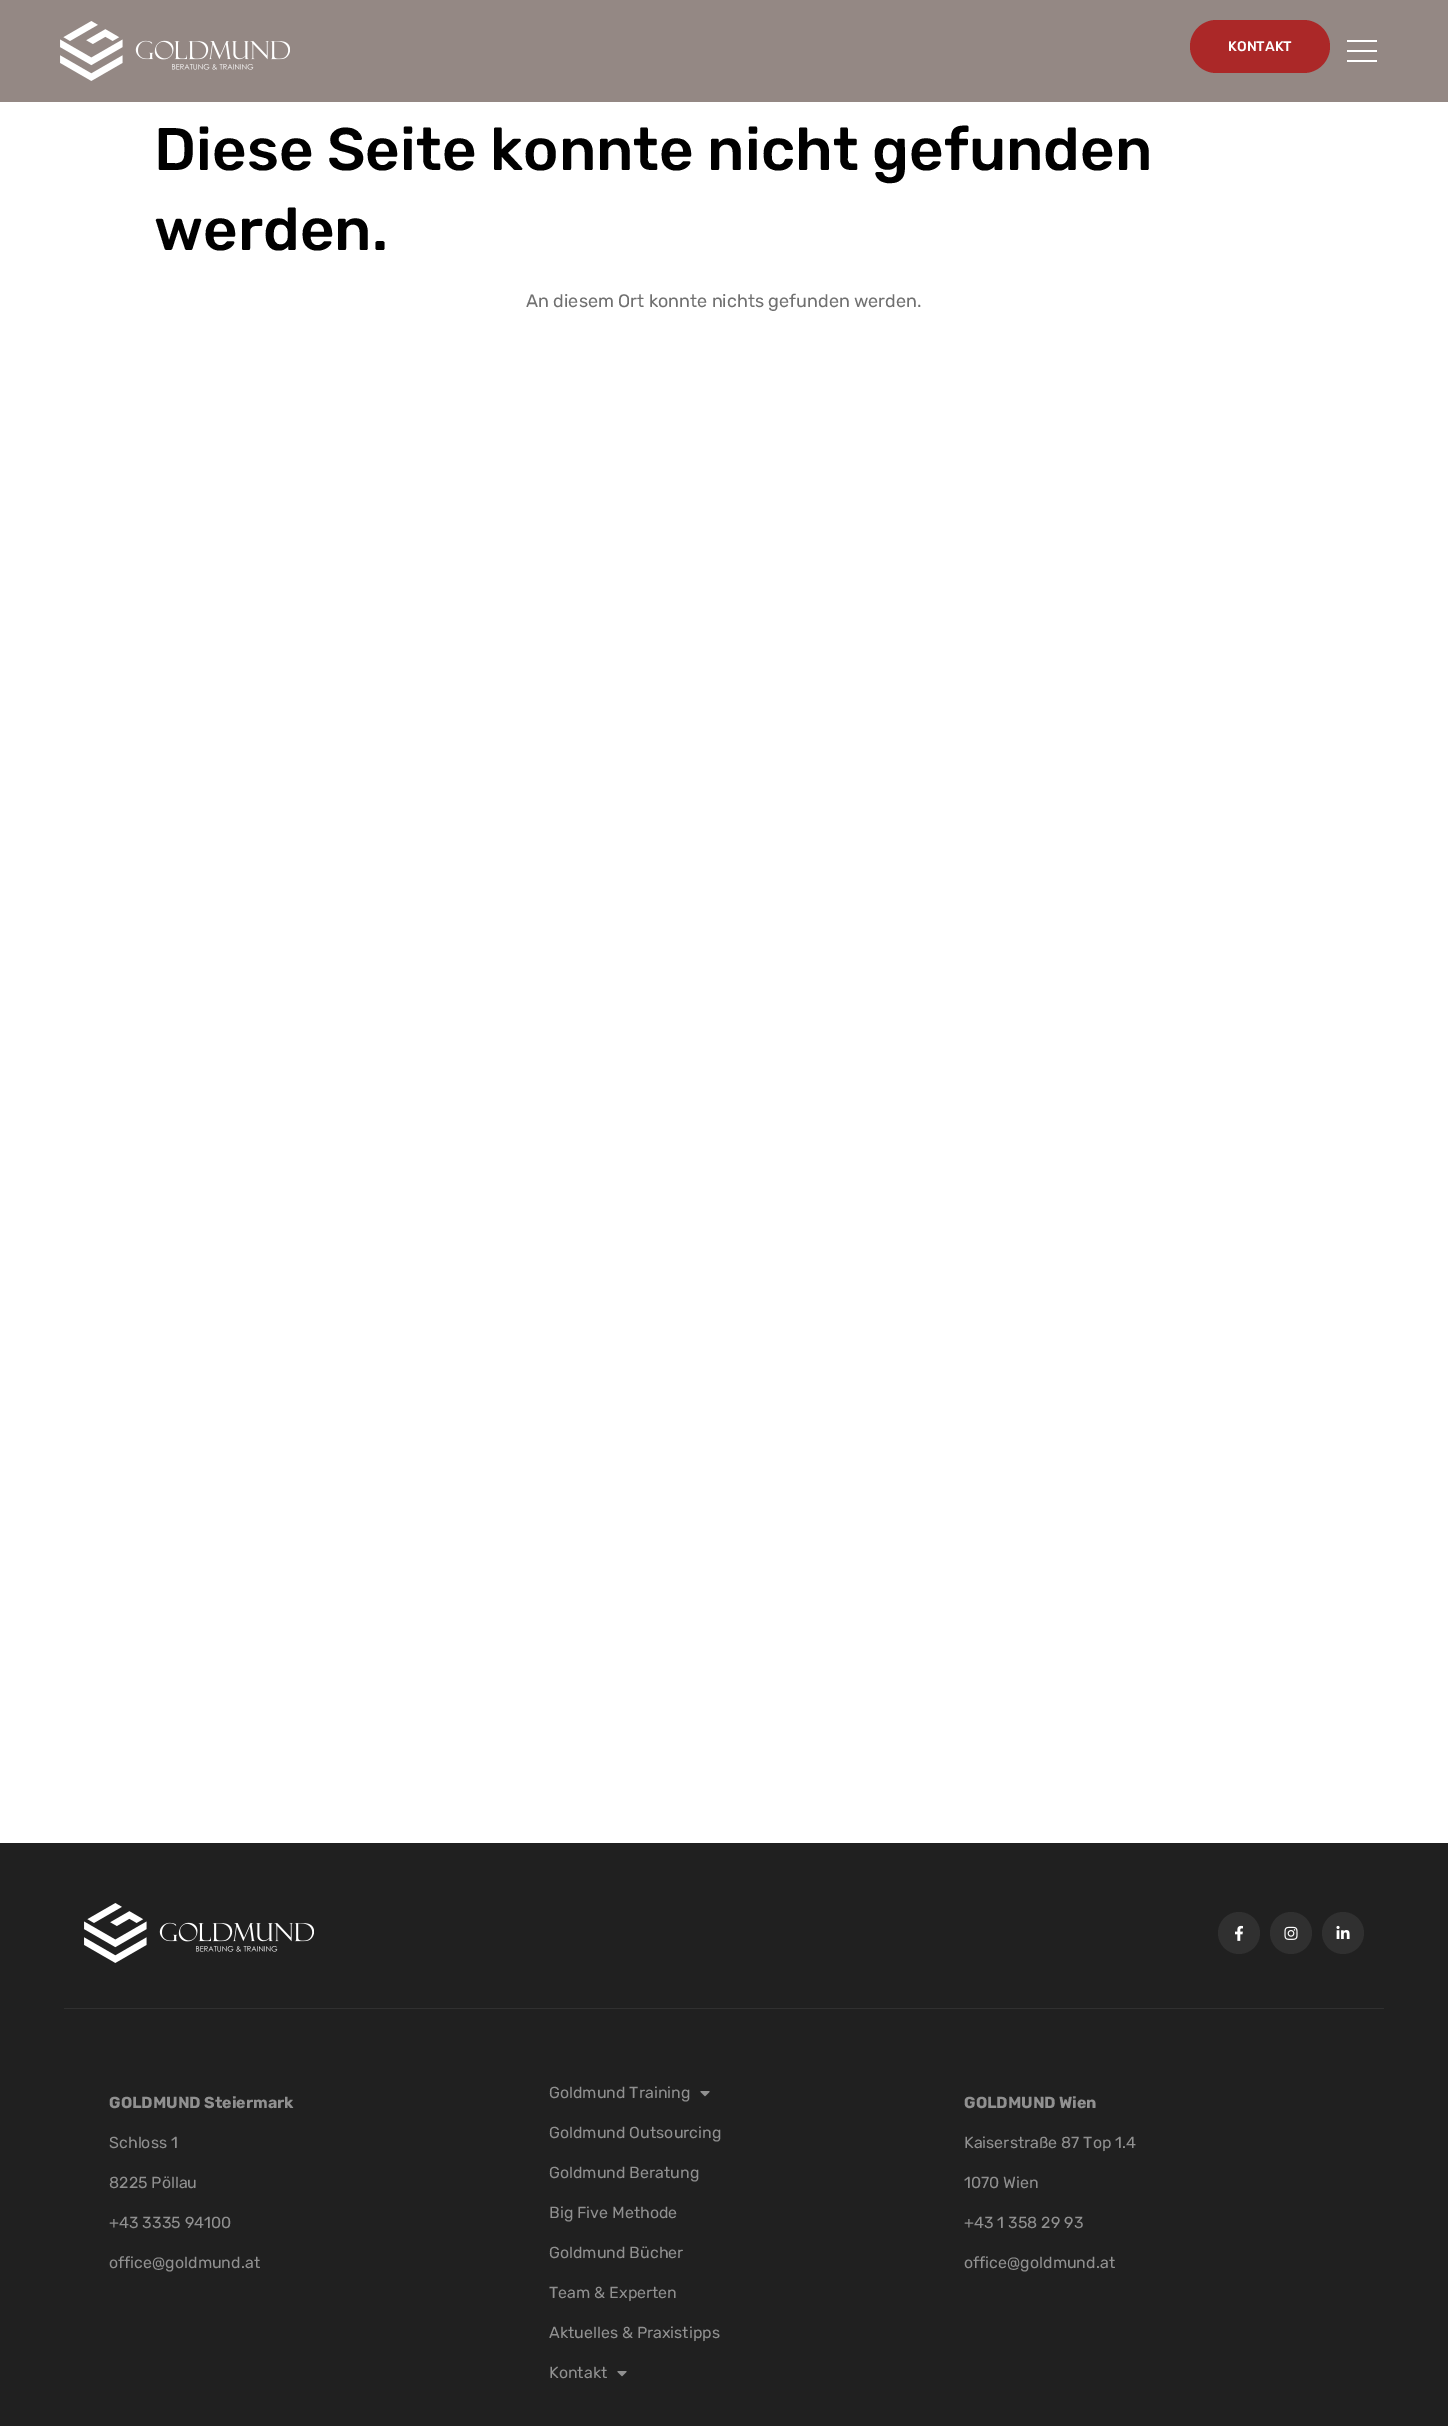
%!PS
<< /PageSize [1448 2426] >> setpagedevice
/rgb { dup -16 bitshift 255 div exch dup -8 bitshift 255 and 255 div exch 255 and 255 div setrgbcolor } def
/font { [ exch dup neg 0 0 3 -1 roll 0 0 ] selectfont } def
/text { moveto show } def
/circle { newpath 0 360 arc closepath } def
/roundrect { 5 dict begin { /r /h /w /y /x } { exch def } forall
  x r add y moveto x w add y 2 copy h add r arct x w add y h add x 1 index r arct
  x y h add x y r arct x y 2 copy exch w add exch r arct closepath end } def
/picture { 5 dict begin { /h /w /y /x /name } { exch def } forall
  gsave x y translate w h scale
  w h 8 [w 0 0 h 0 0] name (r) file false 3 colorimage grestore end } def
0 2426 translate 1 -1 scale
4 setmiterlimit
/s1 { /Rubik-Medium 14 font 16#FFFFFF rgb } def
/s2 { /Rubik-Medium 60 font 16#000000 rgb } def
/s3 { /Rubik-Regular 18 font 16#707070 rgb } def
/s4 { /Rubik-Bold 16 font 16#909090 rgb } def
/s5 { /Rubik-Regular 16 font 16#909090 rgb } def
16#FFFFFF rgb
0 0 1448 2426 rectfill
16#948884 rgb
0 0 1448 102 rectfill
(pic1.raw) 60 21 230 60 picture
16#AB2828 rgb
1190 20 140 53 26.5 roundrect fill
s1
(KONTAKT) 1228 51 text
1347 50 30 2 rectfill
1347 40 30 2 rectfill
1347 60 30 2 rectfill
s2
(Diese Seite konnte nicht gefunden) 154 170 text
(werden.) 154 250 text
s3
(An diesem Ort konnte nichts gefunden werden.) 526 307 text
16#202020 rgb
0 1843 1448 583 rectfill
(pic2.raw) 84 1903 230 60 picture
16#303030 rgb
1239 1933 21 circle fill
(pic3.raw) 1235 1925 8 16 picture
1291 1933 21 circle fill
(pic4.raw) 1284 1926 14 14 picture
1343 1933 21 circle fill
(pic5.raw) 1336 1925 14 14 picture
64 2008 1320 1 rectfill
s4
(GOLDMUND Steiermark) 109 2108 text
s5
(Schloss 1) 109 2148 text
(8225 Pöllau) 109 2188 text
(+43 3335 94100) 109 2228 text
(office@goldmund.at) 109 2268 text
(Goldmund Training) 549 2098 text
(pic6.raw) 700 2091 10 6 picture
(Goldmund Outsourcing) 549 2138 text
(Goldmund Beratung) 549 2178 text
(Big Five Methode) 549 2218 text
(Goldmund Bücher) 549 2258 text
(Team & Experten) 549 2298 text
(Aktuelles & Praxistipps) 549 2338 text
(Kontakt) 549 2378 text
(pic6.raw) 617 2371 10 6 picture
s4
(GOLDMUND Wien) 964 2108 text
s5
(Kaiserstraße 87 Top 1.4) 964 2148 text
(1070 Wien) 964 2188 text
(+43 1 358 29 93) 964 2228 text
(office@goldmund.at) 964 2268 text
showpage
